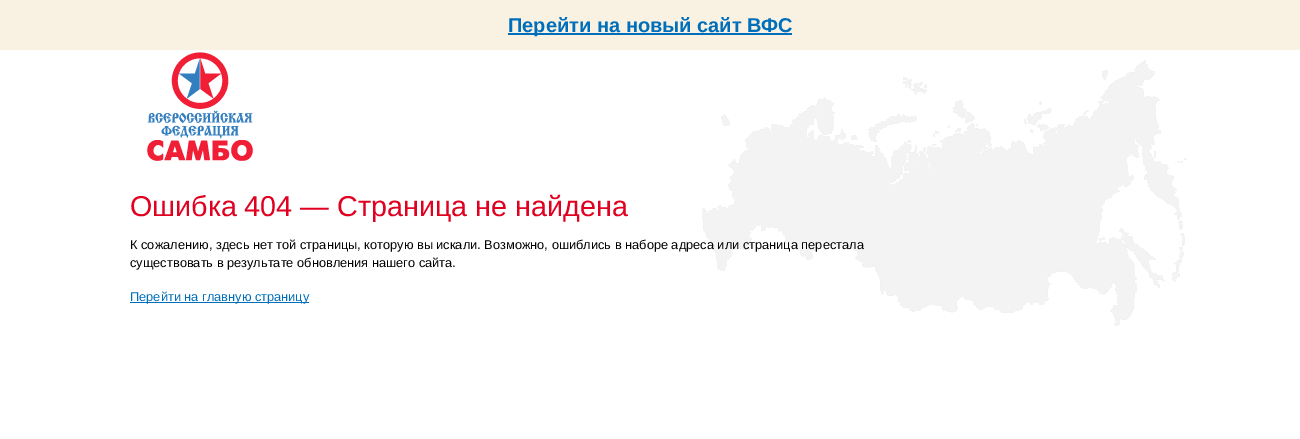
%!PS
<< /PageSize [1300 439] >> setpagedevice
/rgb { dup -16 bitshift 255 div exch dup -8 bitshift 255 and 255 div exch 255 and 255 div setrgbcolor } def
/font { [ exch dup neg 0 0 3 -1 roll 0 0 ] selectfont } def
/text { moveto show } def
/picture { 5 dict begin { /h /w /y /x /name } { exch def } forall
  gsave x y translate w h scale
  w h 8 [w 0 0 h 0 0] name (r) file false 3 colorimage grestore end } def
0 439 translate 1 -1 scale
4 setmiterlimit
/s1 { /LiberationSans-Bold 20 font 16#006FBB rgb } def
/s2 { /LiberationSans-Regular 28.75 font 16#E00020 rgb } def
/s3 { /LiberationSans-Regular 12.8 font 16#000000 rgb } def
/s4 { /LiberationSans-Regular 12.8 font 16#006FBB rgb } def
16#FFFFFF rgb
0 0 1300 439 rectfill
16#F9F2E2 rgb
0 0 1300 50 rectfill
16#006FBB rgb
508 33 284 2 rectfill
s1
(Перейти на новый сайт ВФС) 508 32 text
(pic1.raw) 702 60 485 266 picture
(pic2.raw) 147 52 106 109 picture
s2
(Ошибка 404 — Страница не найдена) 130 216 text
s3
(К сожалению, здесь нет той страницы, которую вы искали. Возможно, ошиблись в наборе адреса или страница перестала) 130 249 text
(существовать в результате обновления нашего сайта.) 130 267 text
16#006FBB rgb
130 302 179 1 rectfill
(Перейти на главную страницу) 130 301 text
showpage
